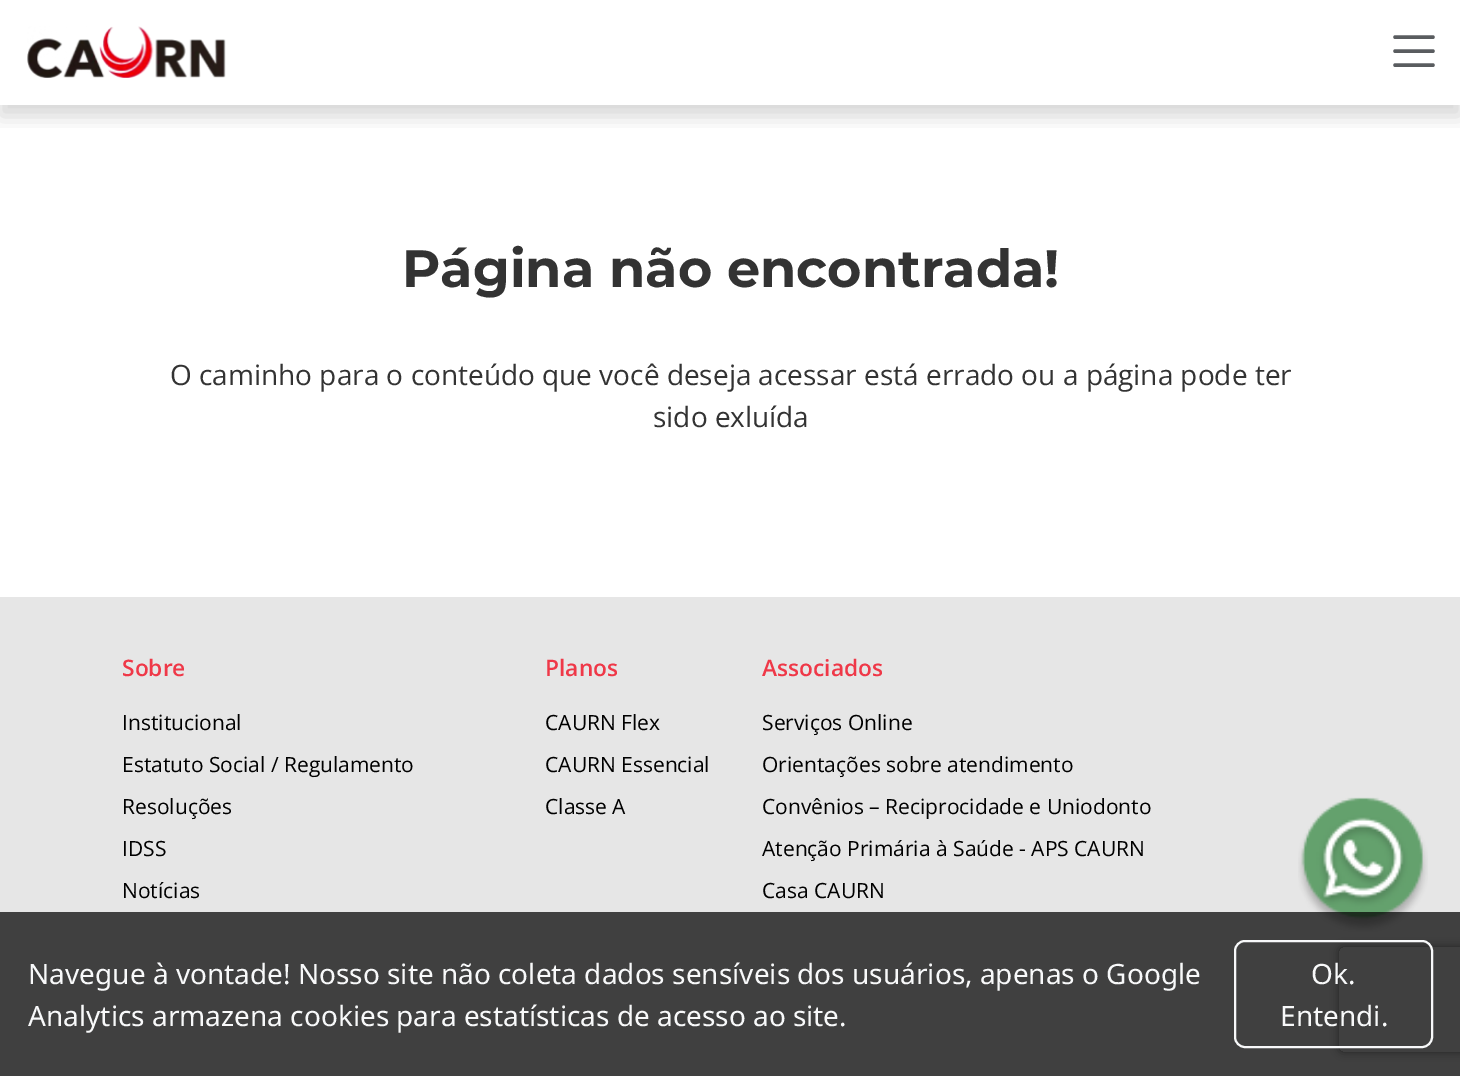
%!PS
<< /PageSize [1460 1076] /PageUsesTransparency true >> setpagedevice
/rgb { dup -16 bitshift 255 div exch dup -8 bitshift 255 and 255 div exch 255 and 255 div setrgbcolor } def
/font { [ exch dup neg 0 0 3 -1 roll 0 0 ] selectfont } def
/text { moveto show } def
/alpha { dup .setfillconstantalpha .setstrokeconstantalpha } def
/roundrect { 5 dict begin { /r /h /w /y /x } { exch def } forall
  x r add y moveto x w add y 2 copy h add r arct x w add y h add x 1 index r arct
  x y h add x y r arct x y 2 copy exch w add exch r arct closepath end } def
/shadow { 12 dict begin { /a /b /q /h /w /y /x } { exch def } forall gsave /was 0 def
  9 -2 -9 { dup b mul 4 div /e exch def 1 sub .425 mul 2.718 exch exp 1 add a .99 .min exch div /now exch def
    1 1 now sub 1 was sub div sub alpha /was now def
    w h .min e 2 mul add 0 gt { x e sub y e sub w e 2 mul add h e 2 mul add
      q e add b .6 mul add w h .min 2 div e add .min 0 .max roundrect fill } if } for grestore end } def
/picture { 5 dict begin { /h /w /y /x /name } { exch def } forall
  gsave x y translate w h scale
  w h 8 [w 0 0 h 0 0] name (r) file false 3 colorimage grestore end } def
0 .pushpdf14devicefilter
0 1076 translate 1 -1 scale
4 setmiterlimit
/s1 { /Montserrat-Bold 52.5 font 16#333333 rgb } def
/s2 { /OpenSans-Regular 28 font 16#333333 rgb } def
/s3 { /OpenSans-SemiBold 22.75 font 16#EF3848 rgb } def
/s4 { /OpenSans-Regular 21 font 16#000000 rgb } def
/s5 { /NotoSans-Regular 28 font 16#F8F9FA rgb } def
16#FFFFFF rgb
0 0 1460 1076 rectfill
gsave
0 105 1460 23 rectclip
16#000000 rgb
0 11 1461 105 0 10.5 0.16 shadow
grestore
(pic1.raw) 27 26 199 52 picture
16#595C5F rgb
3.5 setlinewidth
1 setlinecap
1395 37 moveto 1433 37 lineto 1395 51 moveto 1433 51 lineto 1395 65 moveto 1433 65 lineto stroke
s1
(Página não encontrada!) 402 287 text
s2
(O caminho para o conteúdo que você deseja acessar está errado ou a página pode ter) 170 385 text
(sido exluída) 653 427 text
16#E6E6E6 rgb
0 597 1460 479 rectfill
s3
(Sobre) 122 676 text
s4
(Institucional) 122 730 text
(Estatuto Social / Regulamento) 122 772 text
(Resoluções) 122 814 text
(IDSS) 122 856 text
(Notícias) 122 898 text
s3
(Planos) 545 676 text
s4
(CAURN Flex) 545 730 text
(CAURN Essencial) 545 772 text
(Classe A) 545 814 text
s3
(Associados) 762 676 text
s4
(Serviços Online) 762 730 text
(Orientações sobre atendimento) 762 772 text
(Convênios – Reciprocidade e Uniodonto) 762 814 text
(Atenção Primária à Saúde - APS CAURN) 762 856 text
(Casa CAURN) 762 898 text
(pic2.raw) 1298 797 130 135 picture
gsave
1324 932 moveto 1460 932 lineto 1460 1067 lineto 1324 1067 lineto closepath 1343 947 moveto 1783 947 lineto 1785 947 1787 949 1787 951 curveto 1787 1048 lineto 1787 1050 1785 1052 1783 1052 curveto 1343 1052 lineto 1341 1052 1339 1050 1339 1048 curveto 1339 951 lineto 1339 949 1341 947 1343 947 curveto closepath eoclip newpath
16#808080 rgb
1339 947 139 105 4 4.5 1 shadow
grestore
0.72 alpha
0 912 1460 164 rectfill
1 alpha
s5
(Navegue à vontade! Nosso site não coleta dados sensíveis dos usuários, apenas o Google) 28 984 text
(Analytics armazena cookies para estatísticas de acesso ao site.) 28 1026 text
2 setlinewidth
0 setlinecap
1235 941 197 106 10 roundrect stroke
(Ok.) 1311 984 text
(Entendi.) 1280 1026 text
.poppdf14devicefilter showpage
